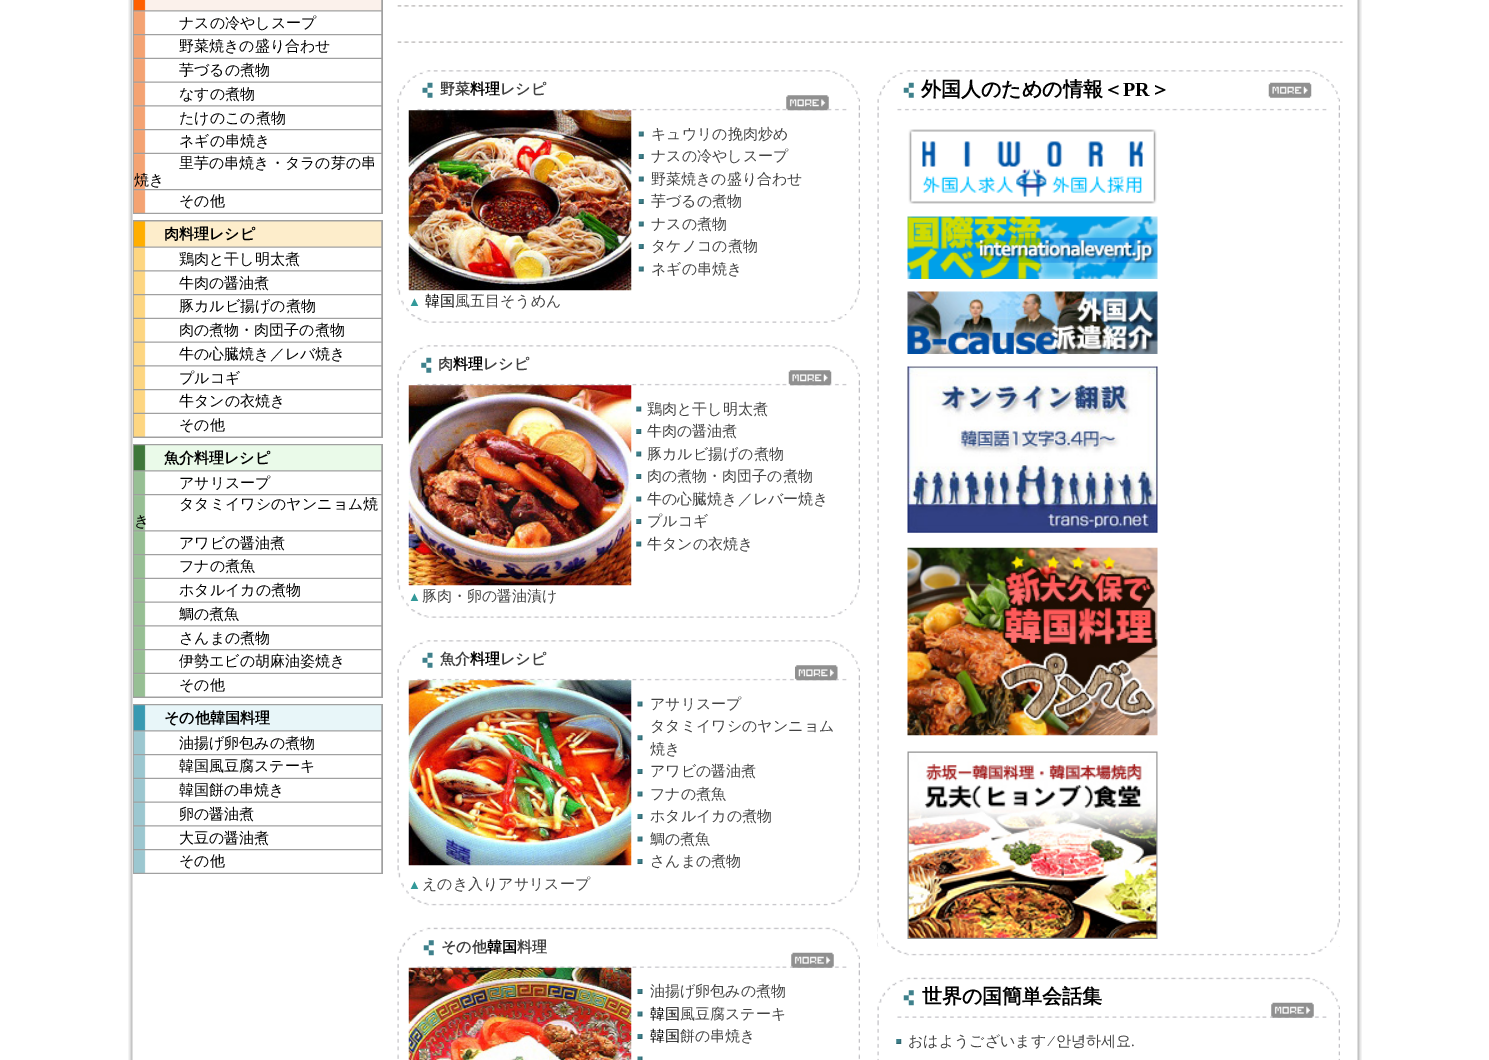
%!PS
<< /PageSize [1489 1060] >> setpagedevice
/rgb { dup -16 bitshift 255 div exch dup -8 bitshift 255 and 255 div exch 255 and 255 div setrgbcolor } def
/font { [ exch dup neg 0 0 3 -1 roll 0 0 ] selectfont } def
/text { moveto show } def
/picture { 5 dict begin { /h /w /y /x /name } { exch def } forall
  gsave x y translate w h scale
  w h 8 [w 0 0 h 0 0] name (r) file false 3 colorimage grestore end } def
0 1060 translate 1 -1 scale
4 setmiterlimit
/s1 { /WenQuanYiZenHei-Medium 15 font 16#000000 rgb } def
/s2 { /WenQuanYiZenHei-Bold 15 font 16#000000 rgb } def
/s3 { /WenQuanYiZenHei-Bold 15 font 16#434343 rgb } def
/s4 { /WenQuanYiZenHei-Medium 15 font 16#434343 rgb } def
/s5 { /LiberationSerif-Regular 13 font 16#339999 rgb } def
/s6 { /WenQuanYiZenHei-Bold 20 font 16#000000 rgb } def
/s7 { /LiberationSerif-Bold 20 font 16#000000 rgb } def
/s8 { /LiberationSerif-Regular 15 font 16#212121 rgb } def
/s9 { /LiberationSerif-Regular 15 font 16#434343 rgb } def
16#FFFFFF rgb
0 0 1489 1060 rectfill
(pic1.raw) 128 0 5 1060 picture
(pic2.raw) 1357 0 5 1060 picture
16#A0A0A0 rgb
133 0 250 214 rectfill
(pic3.raw) 133 0 249 11 picture
(pic4.raw) 133 11 249 23 picture
s1
(ナスの冷やしスープ) 179 28 text
(pic5.raw) 133 35 249 23 picture
(野菜焼きの盛り合わせ) 179 51 text
(pic6.raw) 133 59 249 23 picture
(芋づるの煮物) 179 75 text
(pic7.raw) 133 82 249 24 picture
(なすの煮物) 179 99 text
(pic4.raw) 133 106 249 23 picture
(たけのこの煮物) 179 123 text
(pic5.raw) 133 130 249 23 picture
(ネギの串焼き) 179 146 text
(pic8.raw) 133 154 249 35 picture
(里芋の串焼き・タラの芽の串) 179 168 text
(焼き) 134 185 text
(pic5.raw) 133 190 249 23 picture
(その他) 179 206 text
16#A0A0A0 rgb
133 220 250 218 rectfill
(pic9.raw) 133 221 249 26 picture
s2
(肉料理レシピ) 164 239 text
(pic10.raw) 133 247 249 24 picture
s1
(鶏肉と干し明太煮) 179 264 text
(pic11.raw) 133 271 249 23 picture
(牛肉の醤油煮) 179 288 text
(pic12.raw) 133 295 249 23 picture
(豚カルビ揚げの煮物) 179 311 text
(pic13.raw) 133 319 249 23 picture
(肉の煮物・肉団子の煮物) 179 335 text
(pic10.raw) 133 342 249 24 picture
(牛の心臓焼き／レバ焼き) 179 359 text
(pic11.raw) 133 366 249 23 picture
(プルコギ) 179 383 text
(pic12.raw) 133 390 249 23 picture
(牛タンの衣焼き) 179 406 text
(pic13.raw) 133 414 249 23 picture
(その他) 179 430 text
16#A0A0A0 rgb
133 444 250 254 rectfill
(pic14.raw) 133 445 249 26 picture
s2
(魚介料理レシピ) 164 463 text
(pic15.raw) 133 471 249 23 picture
s1
(アサリスープ) 179 488 text
(pic16.raw) 133 495 249 36 picture
(タタミイワシのヤンニョム焼) 179 509 text
(き) 134 526 text
(pic15.raw) 133 531 249 23 picture
(アワビの醤油煮) 179 548 text
(pic17.raw) 133 555 249 23 picture
(フナの煮魚) 179 571 text
(pic18.raw) 133 579 249 23 picture
(ホタルイカの煮物) 179 595 text
(pic19.raw) 133 602 249 24 picture
(鯛の煮魚) 179 619 text
(pic15.raw) 133 626 249 23 picture
(さんまの煮物) 179 643 text
(pic17.raw) 133 650 249 23 picture
(伊勢エビの胡麻油姿焼き) 179 666 text
(pic18.raw) 133 674 249 23 picture
(その他) 179 690 text
16#A0A0A0 rgb
133 704 250 170 rectfill
(pic20.raw) 133 705 249 26 picture
s2
(その他韓国料理) 164 723 text
(pic21.raw) 133 731 249 23 picture
s1
(油揚げ卵包みの煮物) 179 748 text
(pic22.raw) 133 755 249 23 picture
(韓国風豆腐ステーキ) 179 771 text
(pic23.raw) 133 779 249 23 picture
(韓国餅の串焼き) 179 795 text
(pic24.raw) 133 802 249 24 picture
(卵の醤油煮) 179 819 text
(pic21.raw) 133 826 249 23 picture
(大豆の醤油煮) 179 843 text
(pic22.raw) 133 850 249 23 picture
(その他) 179 866 text
(pic25.raw) 397 5 946 2 picture
(pic26.raw) 397 41 946 2 picture
(pic27.raw) 397 70 463 41 picture
(pic28.raw) 422 82 11 16 picture
s3
(野菜) 440 94 text
s2
(料理) 470 94 text
s3
(レシピ) 500 94 text
(pic29.raw) 786 95 43 16 picture
(pic30.raw) 397 112 2 179 picture
(pic31.raw) 408 110 224 181 picture
(pic32.raw) 638 131 6 6 picture
s4
(キュウリの挽肉炒め) 651 139 text
(pic33.raw) 638 154 6 5 picture
(ナスの冷やしスープ) 651 161 text
(pic32.raw) 638 176 6 6 picture
(野菜焼きの盛り合わせ) 651 184 text
(pic33.raw) 638 199 6 5 picture
(芋づるの煮物) 651 206 text
(pic32.raw) 638 221 6 6 picture
(ナスの煮物) 651 229 text
(pic33.raw) 638 244 6 5 picture
(タケノコの煮物) 651 251 text
(pic32.raw) 638 266 6 6 picture
(ネギの串焼き) 651 274 text
(pic34.raw) 858 112 2 179 picture
(pic35.raw) 397 290 12 22 picture
s5
(▲) 408 306 text
s1
(韓国) 425 306 text
s4
(風五目そうめん) 455 306 text
(pic36.raw) 850 290 10 20 picture
(pic37.raw) 411 314 436 9 picture
(pic38.raw) 397 345 463 41 picture
(pic39.raw) 421 357 11 16 picture
s3
(肉) 438 369 text
s2
(料理) 453 369 text
s3
(レシピ) 483 369 text
(pic40.raw) 788 370 44 16 picture
(pic41.raw) 397 387 2 196 picture
(pic42.raw) 408 385 224 201 picture
(pic43.raw) 636 406 6 6 picture
s4
(鶏肉と干し明太煮) 647 414 text
(pic44.raw) 636 429 6 5 picture
(牛肉の醤油煮) 647 436 text
(pic43.raw) 636 451 6 6 picture
(豚カルビ揚げの煮物) 647 459 text
(pic44.raw) 636 474 6 5 picture
(肉の煮物・肉団子の煮物) 647 481 text
(pic43.raw) 636 496 6 6 picture
(牛の心臓焼き／レバー焼き) 647 504 text
(pic44.raw) 636 519 6 5 picture
(プルコギ) 647 526 text
(pic43.raw) 636 541 6 6 picture
(牛タンの衣焼き) 647 549 text
(pic45.raw) 858 387 2 196 picture
(pic46.raw) 397 585 12 22 picture
s5
(▲) 408 601 text
s4
(豚肉・卵の醤油漬け) 422 601 text
(pic47.raw) 850 585 10 20 picture
(pic37.raw) 411 609 436 9 picture
(pic27.raw) 397 640 463 41 picture
(pic28.raw) 422 652 11 16 picture
s3
(魚介) 440 664 text
s2
(料理) 470 664 text
s3
(レシピ) 500 664 text
(pic48.raw) 795 665 43 16 picture
(pic49.raw) 397 682 2 189 picture
(pic50.raw) 408 680 224 186 picture
(pic51.raw) 637 701 6 6 picture
s4
(アサリスープ) 650 709 text
(pic52.raw) 637 735 6 6 picture
(タタミイワシのヤンニョム) 650 731 text
(焼き) 650 754 text
(pic53.raw) 637 769 6 5 picture
(アワビの醤油煮) 650 776 text
(pic51.raw) 637 791 6 6 picture
(フナの煮魚) 650 799 text
(pic53.raw) 637 814 6 5 picture
(ホタルイカの煮物) 650 821 text
(pic51.raw) 637 836 6 6 picture
(鯛の煮魚) 650 844 text
(pic53.raw) 637 859 6 5 picture
(さんまの煮物) 650 866 text
(pic54.raw) 858 682 2 189 picture
(pic55.raw) 397 872 12 22 picture
s5
(▲) 408 889 text
s4
(えのき入りアサリスープ) 422 889 text
(pic56.raw) 850 872 10 21 picture
(pic57.raw) 411 896 436 10 picture
(pic58.raw) 397 927 463 41 picture
(pic59.raw) 423 940 11 16 picture
s3
(その他) 441 952 text
s2
(韓国) 487 952 text
s3
(料理) 517 952 text
(pic60.raw) 791 952 43 16 picture
(pic61.raw) 397 970 2 89 picture
(pic62.raw) 408 967 224 93 picture
(pic53.raw) 637 989 6 5 picture
s4
(油揚げ卵包みの煮物) 650 996 text
(pic51.raw) 637 1011 6 6 picture
s1
(韓国) 650 1019 text
s4
(風豆腐ステーキ) 680 1019 text
(pic53.raw) 637 1034 6 5 picture
s1
(韓国) 650 1041 text
s4
(餅の串焼き) 680 1041 text
(pic63.raw) 637 1056 6 4 picture
(pic64.raw) 858 970 2 90 picture
(pic65.raw) 877 70 463 41 picture
(pic66.raw) 903 82 11 16 picture
s6
(外国人のための情報＜) 921 96 text
s7
(PR) 1123 96 text
s6
(＞) 1150 96 text
(pic67.raw) 1268 82 44 16 picture
(pic68.raw) 877 112 2 835 picture
(pic69.raw) 877 922 12 25 picture
(pic70.raw) 908 129 249 75 picture
(pic71.raw) 907 216 251 63 picture
(pic72.raw) 907 291 251 63 picture
(pic73.raw) 907 366 251 167 picture
(pic74.raw) 907 547 251 189 picture
(pic75.raw) 907 751 251 188 picture
(pic76.raw) 1338 112 2 835 picture
(pic77.raw) 1330 922 10 25 picture
(pic78.raw) 891 946 436 10 picture
(pic79.raw) 877 977 463 41 picture
(pic59.raw) 903 990 11 16 picture
(世界の国簡単会話集) 922 1003 text
(pic80.raw) 1271 1002 43 16 picture
(pic81.raw) 877 1020 2 40 picture
(pic44.raw) 896 1039 6 5 picture
s4
(おはようございます) 908 1046 text
s8
(⁄) 1050 1046 text
s4
(안녕하세요) 1056 1046 text
s9
(.) 1131 1046 text
(pic82.raw) 1338 1020 2 40 picture
showpage
